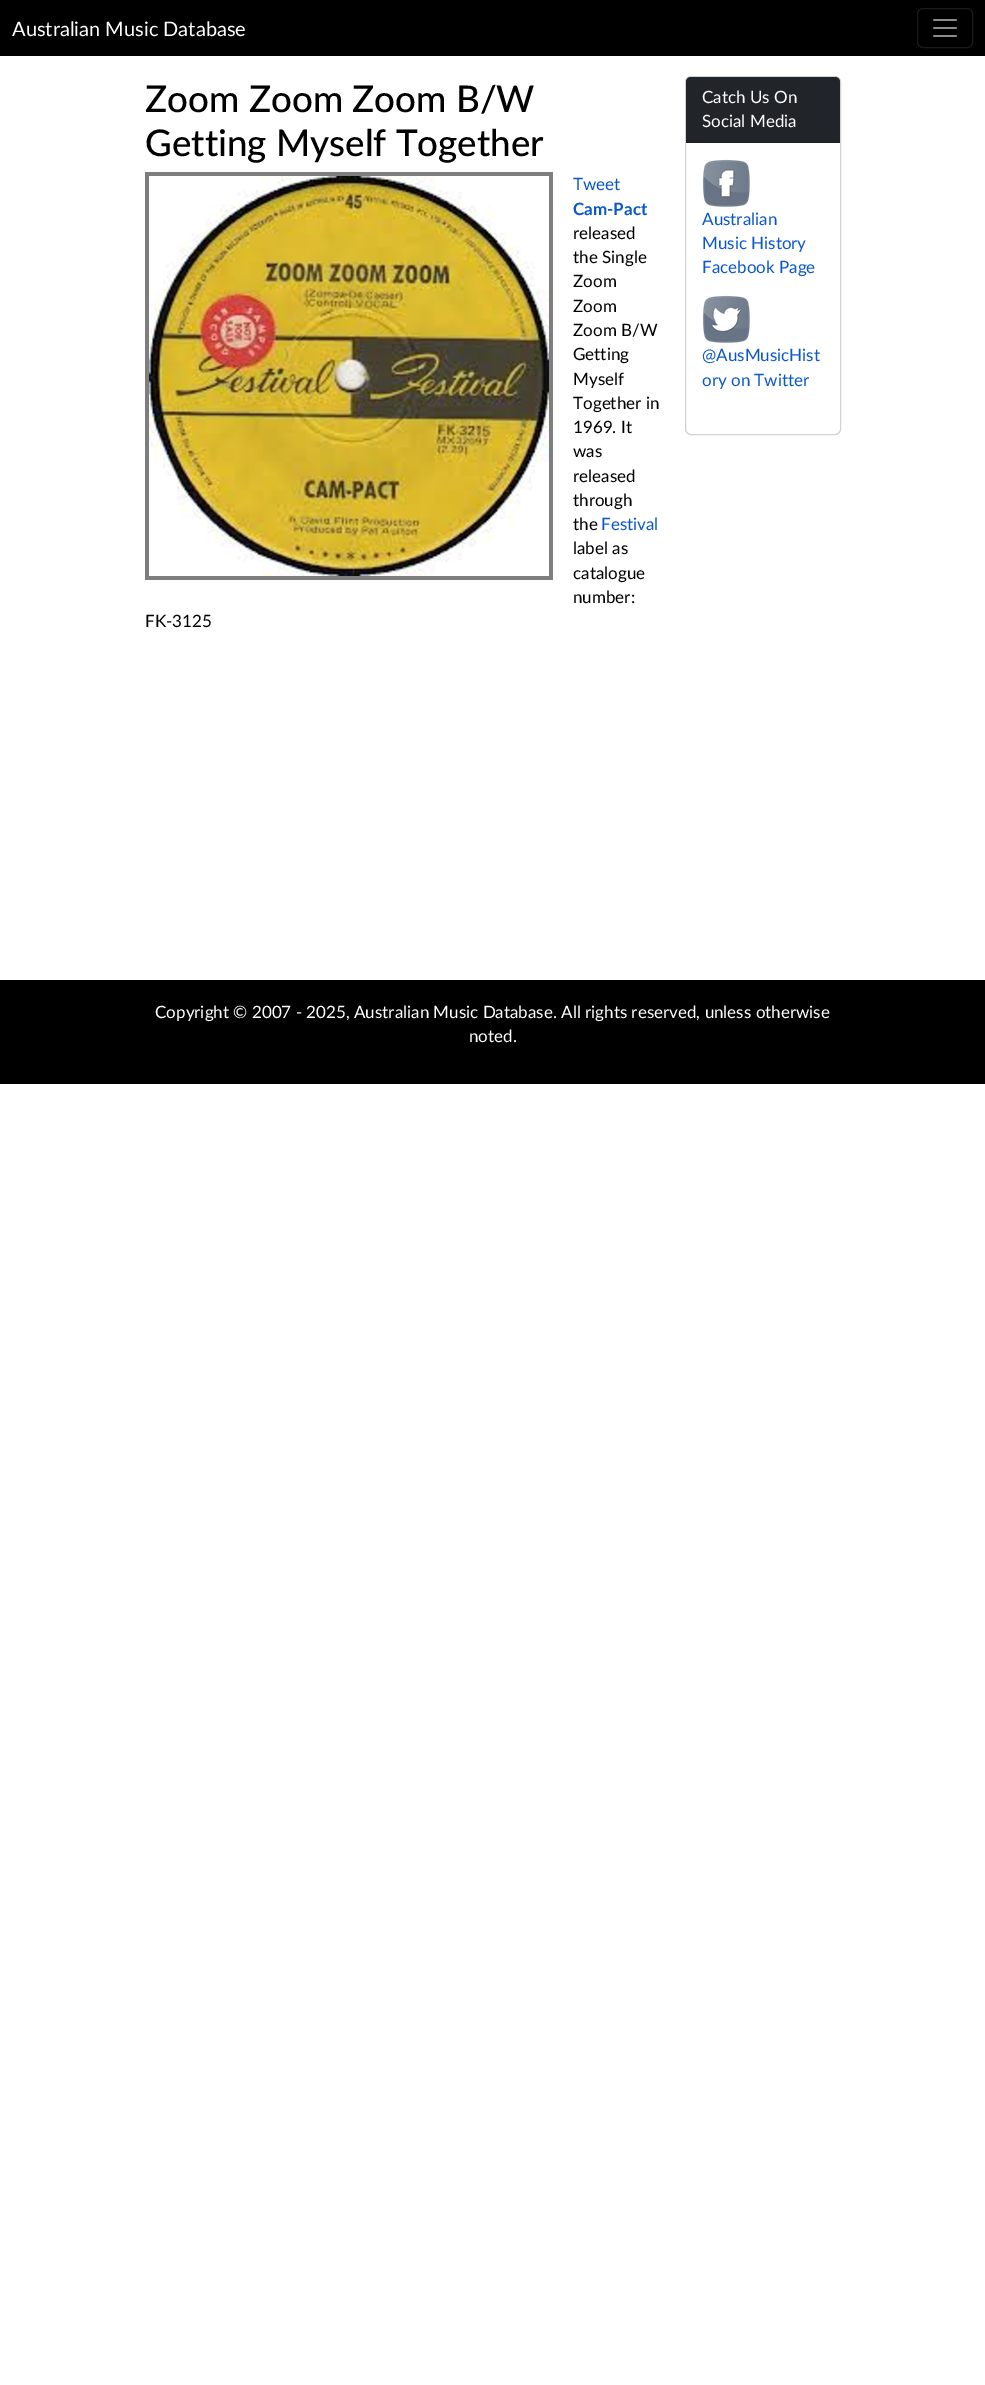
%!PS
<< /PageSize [985 2385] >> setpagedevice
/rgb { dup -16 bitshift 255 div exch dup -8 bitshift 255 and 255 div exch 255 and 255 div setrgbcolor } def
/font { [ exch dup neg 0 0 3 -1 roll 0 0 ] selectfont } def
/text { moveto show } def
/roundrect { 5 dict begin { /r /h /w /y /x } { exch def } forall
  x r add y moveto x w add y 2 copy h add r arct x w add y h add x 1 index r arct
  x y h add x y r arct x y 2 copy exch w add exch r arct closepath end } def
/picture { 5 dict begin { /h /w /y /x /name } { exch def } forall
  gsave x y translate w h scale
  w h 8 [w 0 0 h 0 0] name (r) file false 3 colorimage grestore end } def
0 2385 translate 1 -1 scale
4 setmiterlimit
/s1 { /Lato-Regular 20 font 16#FFFFFF rgb } def
/s2 { /Lato-Medium 36.75 font 16#000000 rgb } def
/s3 { /Lato-Regular 17 font 16#0A58CA rgb } def
/s4 { /Lato-Bold 17 font 16#0A58CA rgb } def
/s5 { /Lato-Regular 17 font 16#000000 rgb } def
/s6 { /Lato-Regular 17 font 16#FFFFFF rgb } def
16#FFFFFF rgb
0 0 985 2385 rectfill
16#000000 rgb
0 0 985 56 rectfill
s1
(Australian Music Database) 12 36 text
16#1A1A1A rgb
917.5 8.5 55 39 5.5 roundrect stroke
(pic1.raw) 933 19 24 18 picture
s2
(Zoom Zoom Zoom B/W) 145 112 text
(Getting Myself Together) 145 156 text
(pic2.raw) 145 172 408 408 picture
s3
(Tweet) 573 190 text
s4
(Cam-Pact) 573 215 text
s5
(released) 573 239 text
(the Single) 573 263 text
(Zoom) 573 287 text
(Zoom) 573 312 text
(Zoom B/W) 573 336 text
(Getting) 573 360 text
(Myself) 573 385 text
(Together in) 573 409 text
(1969. It) 573 433 text
(was) 573 457 text
(released) 573 482 text
(through) 573 506 text
(the) 573 530 text
s3
(Festival) 601 530 text
s5
(label as) 573 554 text
(catalogue) 573 579 text
(number:) 573 603 text
(FK-3125) 145 627 text
16#D2D2D2 rgb
685.5 76.5 155 358 5.5 roundrect stroke
16#212529 rgb
691 77 moveto 835 77 lineto 838 77 840 79 840 82 curveto 840 143 lineto 686 143 lineto 686 82 lineto 686 79 688 77 691 77 curveto closepath fill
16#1B1E22 rgb
686 142 154 1 rectfill
s6
(Catch Us On) 702 103 text
(Social Media) 702 127 text
(pic3.raw) 703 159 47 48 picture
s3
(Australian) 702 225 text
(Music History) 702 249 text
(Facebook Page) 702 273 text
(pic4.raw) 703 295 47 48 picture
(@AusMusicHist) 702 361 text
(ory on Twitter) 702 386 text
16#000000 rgb
0 980 985 104 rectfill
s6
(Copyright © 2007 - 2025, Australian Music Database. All rights reserved, unless otherwise) 155 1018 text
(noted.) 469 1042 text
showpage
